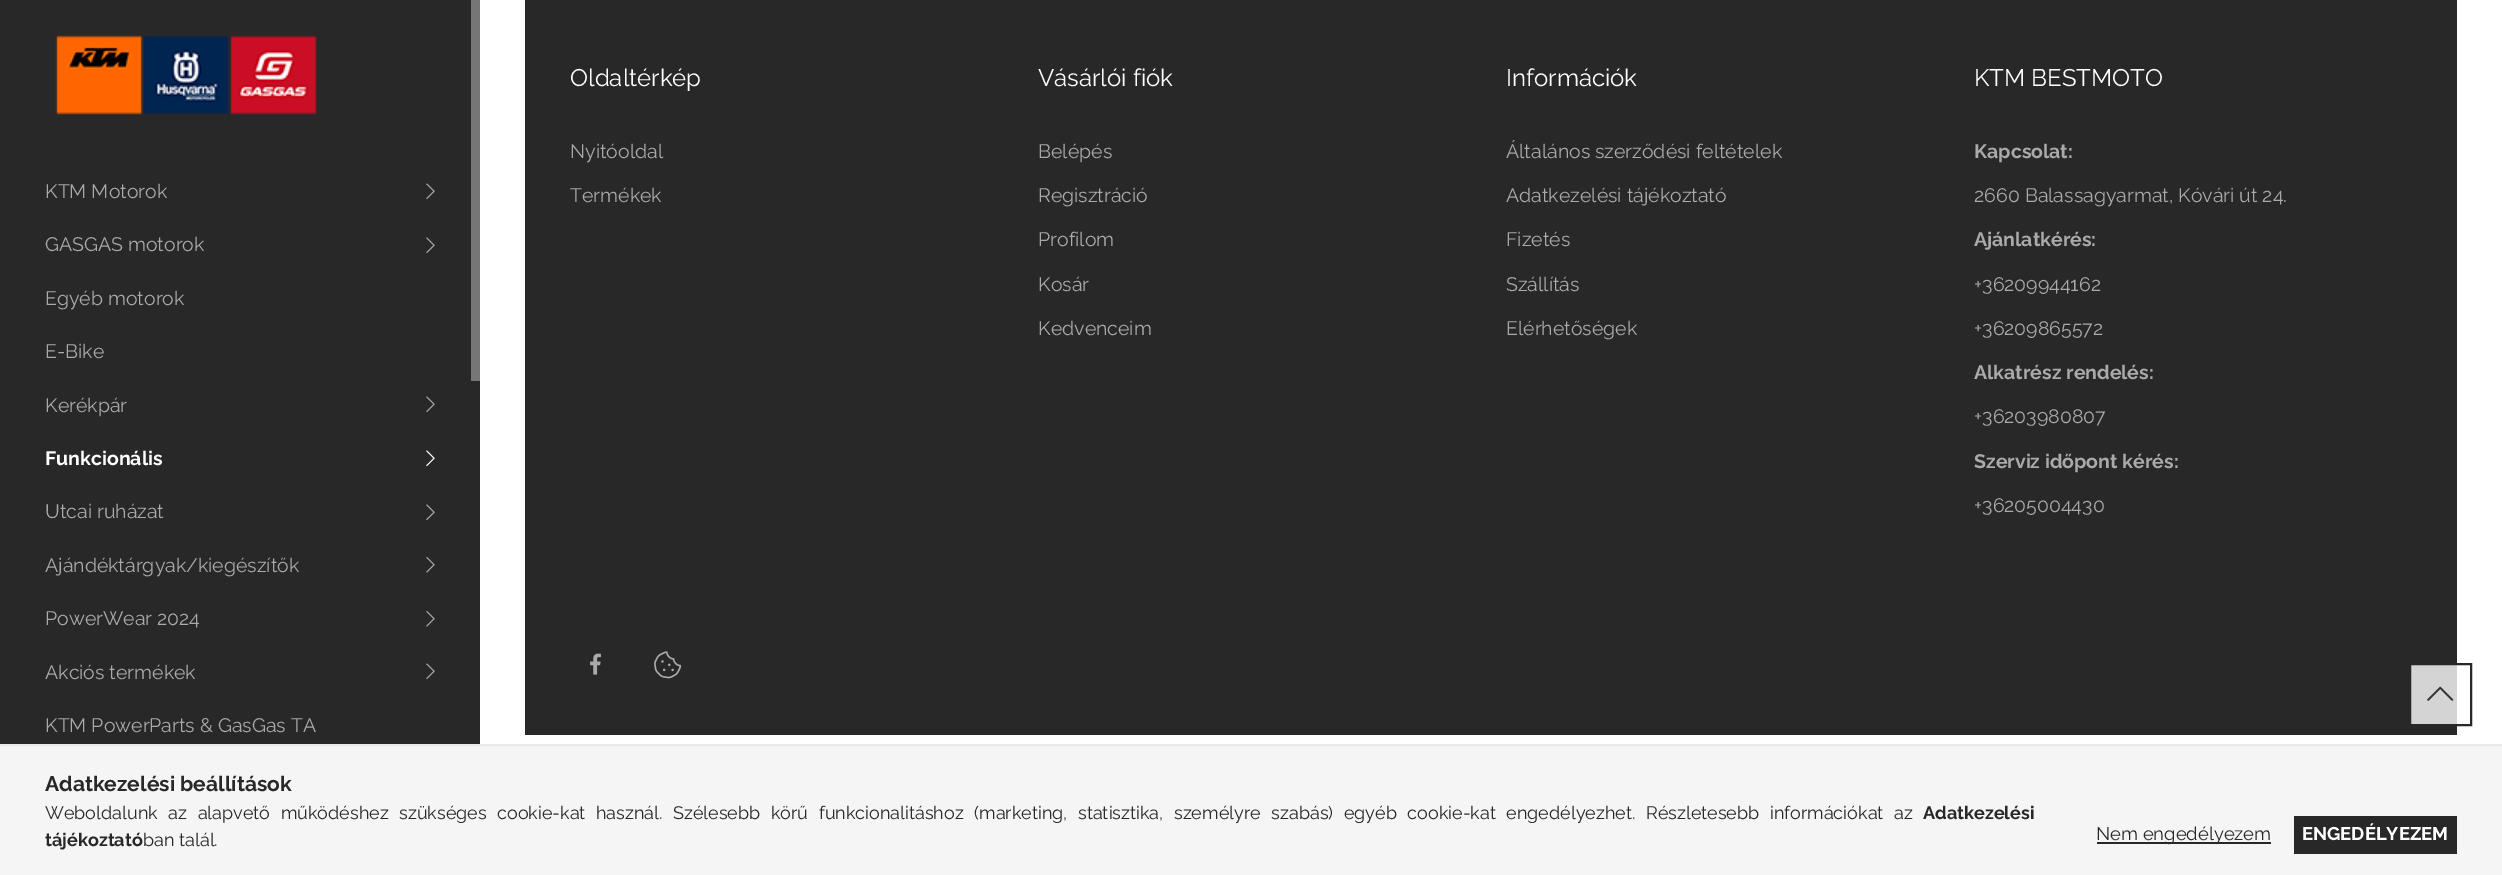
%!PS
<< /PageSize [2502 875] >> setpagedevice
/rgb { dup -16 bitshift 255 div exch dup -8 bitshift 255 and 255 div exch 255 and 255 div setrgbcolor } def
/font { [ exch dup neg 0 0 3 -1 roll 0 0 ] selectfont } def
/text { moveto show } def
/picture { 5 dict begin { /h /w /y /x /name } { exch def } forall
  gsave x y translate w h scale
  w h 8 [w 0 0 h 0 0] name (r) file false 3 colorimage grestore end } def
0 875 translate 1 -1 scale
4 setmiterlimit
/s1 { /Raleway-Regular 19.5 font 16#AAAAAA rgb } def
/s2 { /Raleway-Bold 19.5 font 16#FFFFFF rgb } def
/s3 { /Raleway-Regular 24 font 16#FFFFFF rgb } def
/s4 { /Raleway-Bold 19.5 font 16#AAAAAA rgb } def
/s5 { /Raleway-Bold 21 font 16#282828 rgb } def
/s6 { /Raleway-Bold 18 font 16#282828 rgb } def
/s7 { /Raleway-Regular 18 font 16#282828 rgb } def
/s8 { /Raleway-Regular 18.4 font 16#282828 rgb } def
/s9 { /Raleway-Bold 18.4 font 16#FFFFFF rgb } def
16#FFFFFF rgb
0 0 2502 875 rectfill
16#282828 rgb
0 0 480 744 rectfill
(pic1.raw) 55 35 262 80 picture
s1
(KTM Motorok) 45 198 text
(pic2.raw) 426 183 9 16 picture
(GASGAS motorok) 45 251 text
(pic2.raw) 426 237 9 16 picture
(Egyéb motorok) 45 305 text
(E-Bike) 45 358 text
(Kerékpár) 45 412 text
(pic2.raw) 426 396 9 16 picture
s2
(Funkcionális) 45 465 text
(pic3.raw) 426 450 9 17 picture
s1
(Utcai ruházat) 45 518 text
(pic2.raw) 426 504 9 16 picture
(Ajándéktárgyak/kiegészítők) 45 572 text
(pic4.raw) 426 557 9 16 picture
(PowerWear 2024) 45 625 text
(pic4.raw) 426 611 9 16 picture
(Akciós termékek) 45 679 text
(pic2.raw) 426 663 9 16 picture
(KTM PowerParts & GasGas TA) 45 732 text
16#767676 rgb
471 0 9 381 rectfill
16#282828 rgb
525 0 1932 735 rectfill
16#D4D4D4 rgb
2411 665 46 59 rectfill
s3
(Oldaltérkép) 570 86 text
s1
(Nyitóoldal) 570 158 text
(Termékek) 570 202 text
s3
(Vásárlói fiók) 1038 86 text
s1
(Belépés) 1038 158 text
(Regisztráció) 1038 202 text
(Profilom) 1038 246 text
(Kosár) 1038 291 text
(Kedvenceim) 1038 335 text
s3
(Információk) 1506 86 text
s1
(Általános szerződési feltételek) 1506 158 text
(Adatkezelési tájékoztató) 1506 202 text
(Fizetés) 1506 246 text
(Szállítás) 1506 291 text
(Elérhetőségek) 1506 335 text
s3
(KTM BESTMOTO) 1974 86 text
s4
(Kapcsolat:) 1974 158 text
s1
(2660 Balassagyarmat, Kóvári út 24.) 1974 202 text
s4
(Ajánlatkérés:) 1974 246 text
s1
(+36209944162) 1974 291 text
(+36209865572) 1974 335 text
s4
(Alkatrész rendelés:) 1974 379 text
s1
(+36203980807) 1974 423 text
s4
(Szerviz időpont kérés:) 1974 468 text
s1
(+36205004430) 1974 512 text
(pic5.raw) 590 653 11 22 picture
(pic6.raw) 654 651 28 28 picture
16#282828 rgb
2 setlinewidth
2410 664 61 61 rectstroke
(pic7.raw) 2427 686 27 15 picture
16#F5F5F5 rgb
0 746 2502 129 rectfill
16#EAEAEA rgb
0 744 2502 2 rectfill
s5
(Adatkezelési beállítások) 45 791 text
/Raleway-Regular 18 font
45 819 moveto 6 0 32 (Weboldalunk az alapvető működéshez szükséges cookie-kat használ. Szélesebb körű funkcionalitáshoz \(marketing, statisztika, személyre szabás\) egyéb cookie-kat engedélyezhet. Részletesebb információkat az) widthshow
s6
(Adatkezelési) 1923 819 text
(tájékoztató) 45 846 text
s7
(ban talál.) 143 846 text
2097 842 174 2 rectfill
s8
(Nem engedélyezem) 2096 840 text
2294 816 163 38 rectfill
s9
(ENGEDÉLYEZEM) 2302 840 text
showpage
